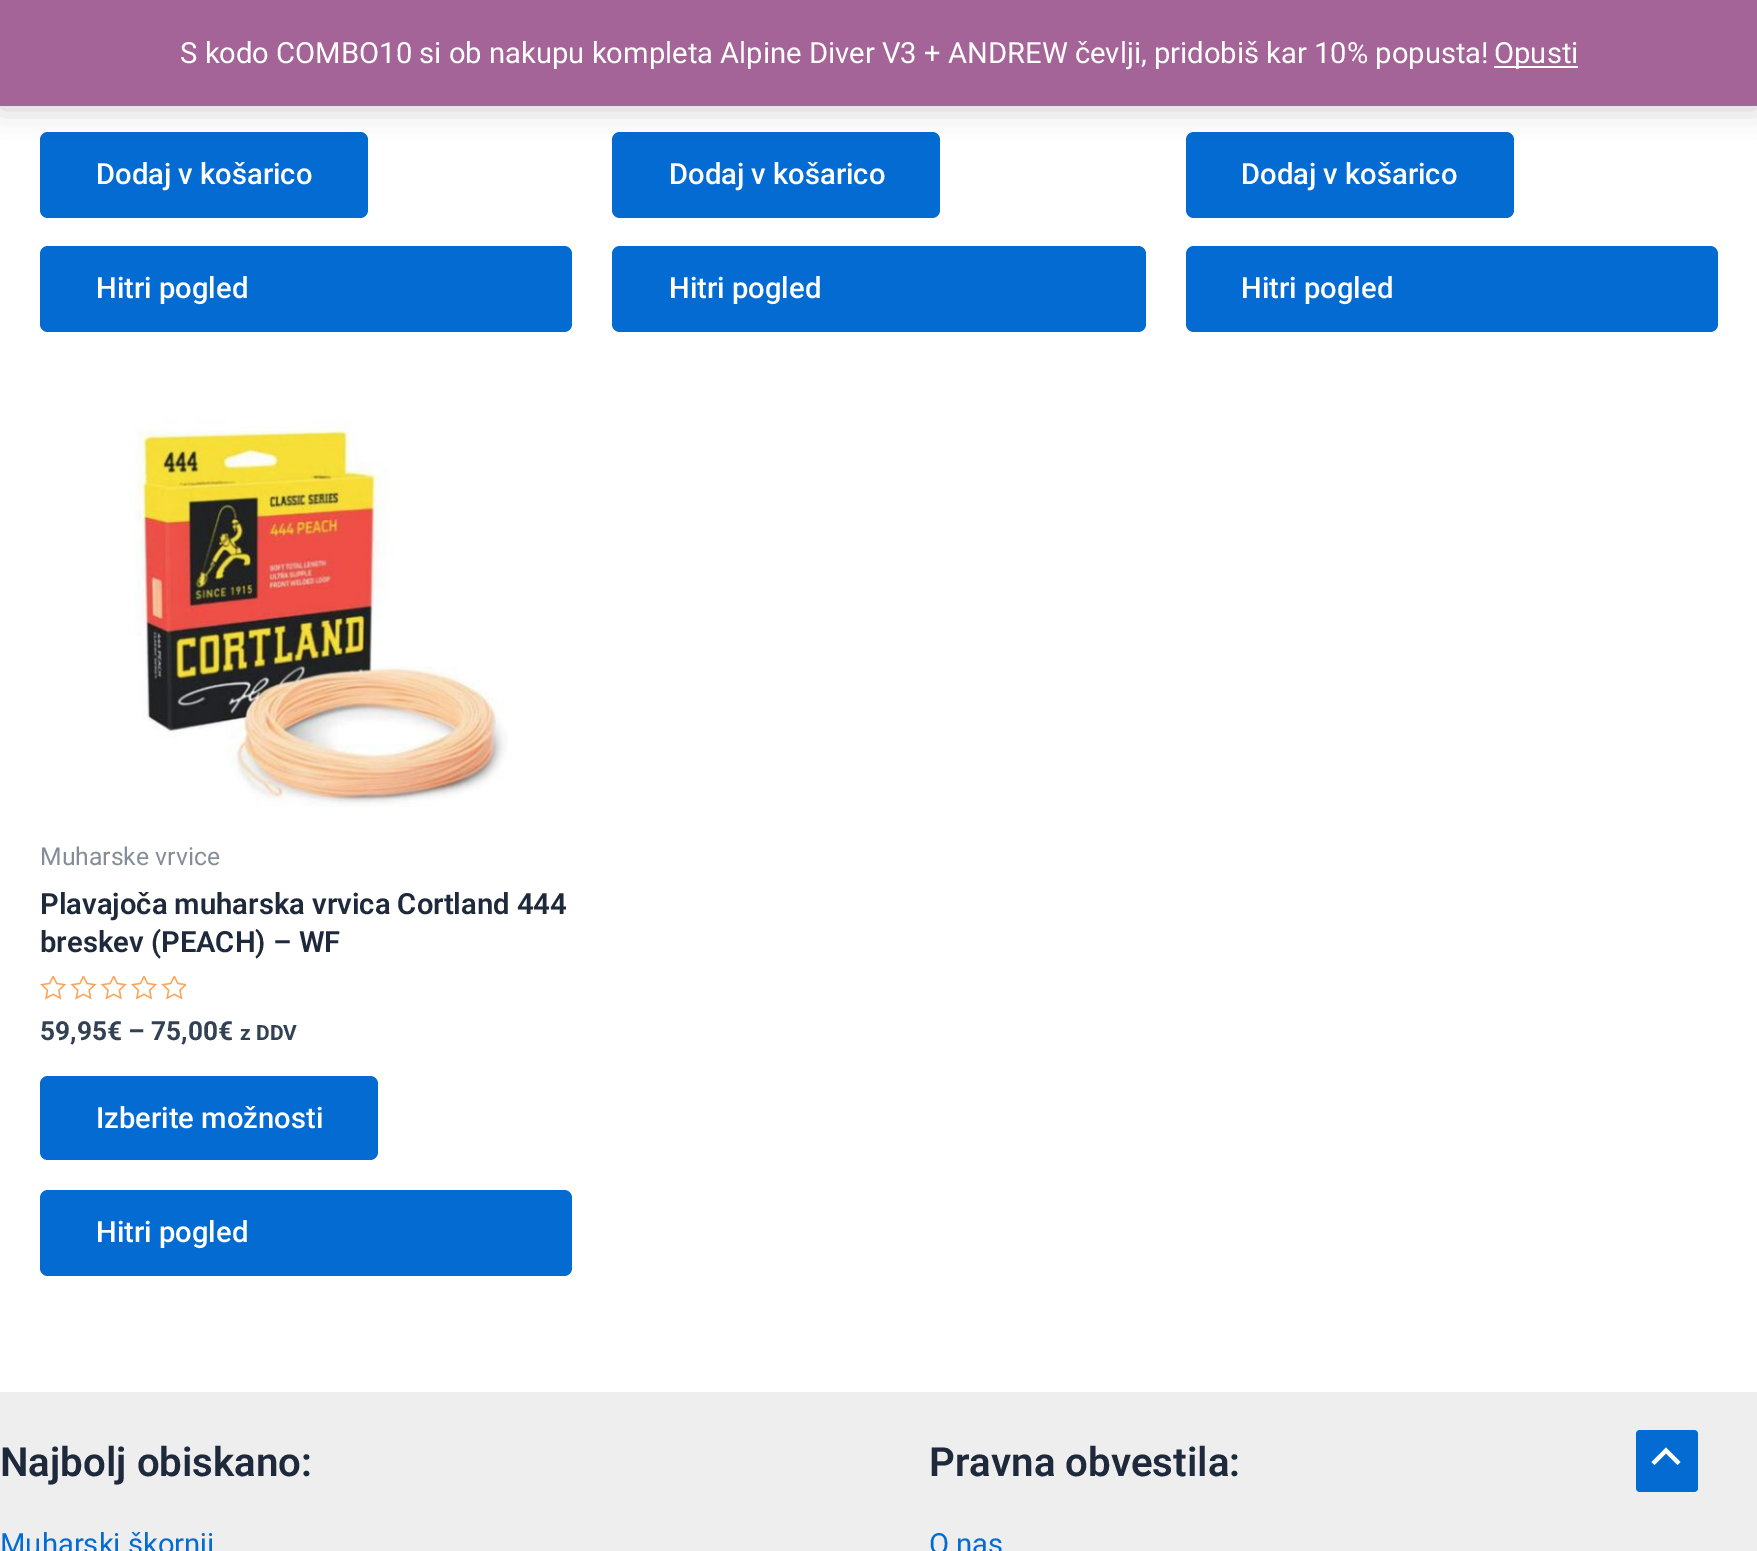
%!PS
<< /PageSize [1757 1551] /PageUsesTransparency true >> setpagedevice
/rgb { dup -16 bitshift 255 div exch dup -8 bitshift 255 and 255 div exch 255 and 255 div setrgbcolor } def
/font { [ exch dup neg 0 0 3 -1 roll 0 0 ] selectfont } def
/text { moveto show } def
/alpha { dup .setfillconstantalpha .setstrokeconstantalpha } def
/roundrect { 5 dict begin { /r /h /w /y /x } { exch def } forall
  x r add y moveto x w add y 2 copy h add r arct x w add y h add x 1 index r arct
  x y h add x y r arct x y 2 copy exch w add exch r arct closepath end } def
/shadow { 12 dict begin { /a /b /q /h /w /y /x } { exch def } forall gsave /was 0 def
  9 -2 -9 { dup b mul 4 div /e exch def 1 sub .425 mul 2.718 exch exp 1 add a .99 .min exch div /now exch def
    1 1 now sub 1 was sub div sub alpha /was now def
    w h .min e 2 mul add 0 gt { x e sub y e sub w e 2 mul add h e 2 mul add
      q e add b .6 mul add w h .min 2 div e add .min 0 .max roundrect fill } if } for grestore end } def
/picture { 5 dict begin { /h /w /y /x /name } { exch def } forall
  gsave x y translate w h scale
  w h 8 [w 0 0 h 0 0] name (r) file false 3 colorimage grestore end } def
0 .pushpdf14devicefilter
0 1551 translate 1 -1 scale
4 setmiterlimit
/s1 { /Roboto-Regular 29.2 font 16#FFFFFF rgb } def
/s2 { /Roboto-Medium 29.2 font 16#FFFFFF rgb } def
/s3 { /Roboto-Regular 24.75 font 16#858D99 rgb } def
/s4 { /Roboto-SemiBold 29.2 font 16#1E293B rgb } def
/s5 { /Roboto-Bold 26.25 font 16#334155 rgb } def
/s6 { /Roboto-Bold 21 font 16#334155 rgb } def
/s7 { /Roboto-SemiBold 40.25 font 16#1E293B rgb } def
/s8 { /Roboto-Regular 29.2 font 16#046BD2 rgb } def
16#FFFFFF rgb
0 0 1757 1551 rectfill
16#046BD2 rgb
40 132 328 86 8 roundrect fill
612 132 328 86 8 roundrect fill
1186 132 328 86 8 roundrect fill
16#000000 rgb
0 2 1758 106 0 14.5 0.2 shadow
16#A46497 rgb
0 0 1757 106 rectfill
s1
(S kodo COMBO10 si ob nakupu kompleta Alpine Diver V3 + ANDREW čevlji, pridobiš kar 10% popusta!) 180 63 text
1494 66 84 2 rectfill
(Opusti) 1494 63 text
s2
(Dodaj v košarico) 96 184 text
16#046BD2 rgb
40 246 532 86 8 roundrect fill
s2
(Hitri pogled) 96 298 text
(Dodaj v košarico) 669 184 text
16#046BD2 rgb
612 246 534 86 8 roundrect fill
s2
(Hitri pogled) 669 298 text
(Dodaj v košarico) 1241 184 text
16#046BD2 rgb
1186 246 532 86 8 roundrect fill
s2
(Hitri pogled) 1241 298 text
(pic1.raw) 133 418 375 389 picture
s3
(Muharske vrvice) 40 865 text
s4
(Plavajoča muharska vrvica Cortland 444) 40 914 text
(breskev \(PEACH\) – WF) 40 952 text
(pic2.raw) 40 976 146 24 picture
s5
(59,95€ – 75,00€) 40 1040 text
s6
(z DDV) 240 1040 text
16#046BD2 rgb
40 1076 338 84 8 roundrect fill
s2
(Izberite možnosti) 96 1128 text
16#046BD2 rgb
40 1190 532 86 8 roundrect fill
s2
(Hitri pogled) 96 1242 text
16#EEEEEE rgb
0 1392 1757 159 rectfill
s7
(Najbolj obiskano:) 0 1476 text
s8
(Muharski škornji) 0 1554 text
s7
(Pravna obvestila:) 929 1476 text
s8
(O nas) 929 1554 text
1636 1430 62 62 4 roundrect fill
16#FFFFFF rgb
1680.5 1462 moveto 1666 1447.5 lineto 1651.5 1462 lineto 1654.5 1465 lineto 1666 1453.5 lineto 1677.5 1465 lineto closepath fill
.poppdf14devicefilter showpage
